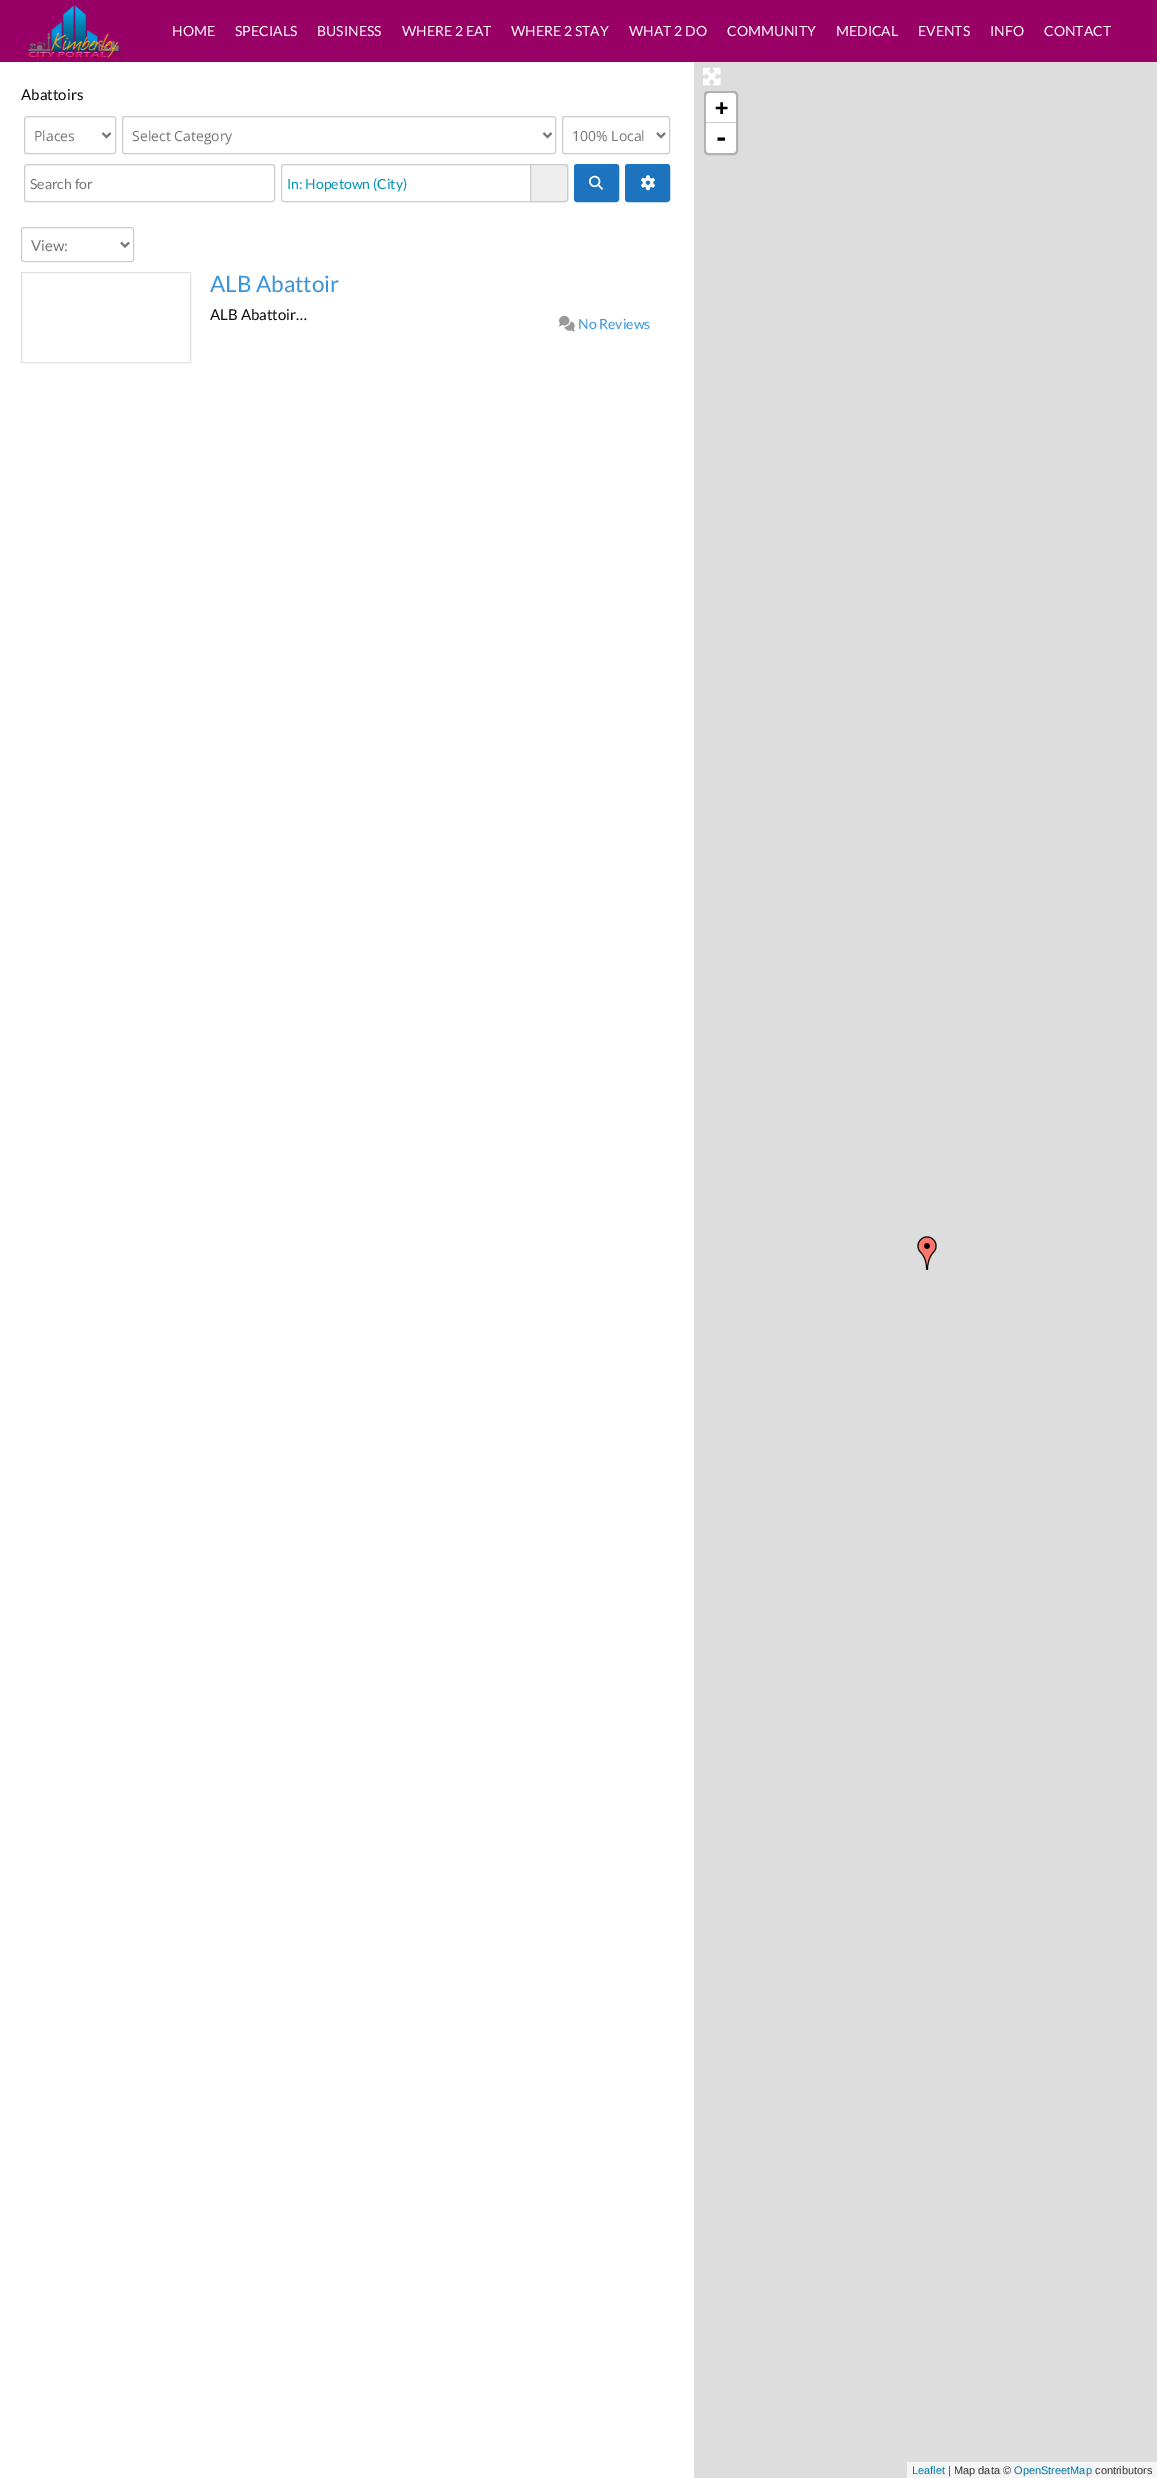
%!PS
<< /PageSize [1157 2478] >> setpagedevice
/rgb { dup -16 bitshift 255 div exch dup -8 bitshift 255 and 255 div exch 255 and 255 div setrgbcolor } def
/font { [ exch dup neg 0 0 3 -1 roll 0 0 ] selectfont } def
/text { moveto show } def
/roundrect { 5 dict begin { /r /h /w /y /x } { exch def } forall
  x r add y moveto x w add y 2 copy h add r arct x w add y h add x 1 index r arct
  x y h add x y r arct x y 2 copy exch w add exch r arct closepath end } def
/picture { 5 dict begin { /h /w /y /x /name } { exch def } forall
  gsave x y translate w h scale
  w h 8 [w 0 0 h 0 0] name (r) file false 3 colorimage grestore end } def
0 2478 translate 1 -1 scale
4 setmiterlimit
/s1 { /Lato-Regular 14 font 16#FFFFFF rgb } def
/s2 { /Lato-Regular 15 font 16#0A0A0A rgb } def
/s3 { /OpenSans-Regular 14 font 16#757575 rgb } def
/s4 { /Lato-Regular 14 font 16#757575 rgb } def
/s5 { /Lato-Regular 14 font 16#0393B7 rgb } def
/s6 { /Lato-Regular 15 font 16#757575 rgb } def
/s7 { /Lato-Regular 22.5 font 16#3B94D9 rgb } def
/s8 { /Lato-Regular 14 font 16#3B94D9 rgb } def
/s9 { /DejaVuSansMono-Bold 22 font 16#000000 rgb } def
/s10 { /DejaVuSansMono-Bold 24 font 16#000000 rgb } def
/s11 { /LiberationSans-Regular 11 font 16#0078A8 rgb } def
/s12 { /LiberationSans-Regular 11 font 16#333333 rgb } def
16#FFFFFF rgb
0 0 1157 2478 rectfill
16#990066 rgb
0 0 1157 62 rectfill
(pic1.raw) 28 5 91 53 picture
s1
(HOME) 172 36 text
(SPECIALS) 235 36 text
(BUSINESS) 317 36 text
(WHERE 2 EAT) 402 36 text
(WHERE 2 STAY) 511 36 text
(WHAT 2 DO) 629 36 text
(COMMUNITY) 727 36 text
(MEDICAL) 836 36 text
(EVENTS) 918 36 text
(INFO) 990 36 text
(CONTACT) 1044 36 text
s2
(Abattoirs) 21 100 text
16#CCCCCC rgb
24.5 116.5 91 37 2.5 roundrect stroke
16#757575 rgb
2 setlinewidth
102.5 133 moveto 106.5 137 lineto 110.5 133 lineto stroke
s3
(Places) 34 141 text
16#CCCCCC rgb
1 setlinewidth
122.5 116.5 433 37 2.5 roundrect stroke
16#757575 rgb
2 setlinewidth
543.5 133 moveto 547.5 137 lineto 551.5 133 lineto stroke
(Select Category) 132 141 text
16#CCCCCC rgb
1 setlinewidth
562.5 116.5 107 37 2.5 roundrect stroke
16#757575 rgb
2 setlinewidth
657 133 moveto 661 137 lineto 665 133 lineto stroke
(100% Local) 572 141 text
16#CCCCCC rgb
1 setlinewidth
24.5 164.5 250 37 2.5 roundrect stroke
s4
(Search for) 30 189 text
16#CCCCCC rgb
281.5 164.5 286 37 2.5 roundrect stroke
s5
(In: Hopetown \(City\)) 287 189 text
16#EEEEEE rgb
530.5 164.5 moveto 565 164.5 lineto 566.5 164.5 567.5 165.5 567.5 167 curveto 567.5 199 lineto 567.5 200.5 566.5 201.5 565 201.5 curveto 530.5 201.5 lineto closepath gsave fill grestore
16#CCCCCC rgb
stroke
16#1E73BE rgb
574.5 164.5 44 37 2.5 roundrect gsave fill grestore
stroke
(pic2.raw) 589 175 14 15 picture
625.5 164.5 44 37 2.5 roundrect gsave fill grestore
stroke
(pic3.raw) 641 175 14 16 picture
16#CCCCCC rgb
21.5 227.5 112 34 2.5 roundrect stroke
16#757575 rgb
2 setlinewidth
121 242.5 moveto 125 246.5 lineto 129 242.5 lineto stroke
s6
(View:) 31 251 text
16#E1E1E1 rgb
1 setlinewidth
21.5 272.5 169 90 rectstroke
s7
(ALB Abattoir) 210 292 text
s2
(ALB Abattoir…) 210 320 text
(pic4.raw) 559 315 16 17 picture
s8
(No Reviews) 578 329 text
16#DDDDDD rgb
694 62 463 2416 rectfill
(pic5.raw) 703 67 18 19 picture
16#B1B1B1 rgb
2 setlinewidth
705 92 32 62 3 roundrect stroke
16#FFFFFF rgb
710 93 moveto 732 93 lineto 734 93 736 95 736 97 curveto 736 123 lineto 706 123 lineto 706 97 lineto 706 95 708 93 710 93 curveto closepath fill
16#CCCCCC rgb
706 122 30 1 rectfill
s9
(+) 715 115 text
16#FFFFFF rgb
706 123 moveto 736 123 lineto 736 149 lineto 736 151 734 153 732 153 curveto 710 153 lineto 708 153 706 151 706 149 curveto closepath fill
s10
(-) 714 146 text
16#F5F5F5 rgb
907 2462 250 16 rectfill
s11
(Leaflet) 912 2474 text
s12
(| Map data ©) 948 2474 text
s11
(OpenStreetMap) 1014 2474 text
s12
(contributors) 1095 2474 text
(pic6.raw) 917 1236 20 34 picture
showpage
